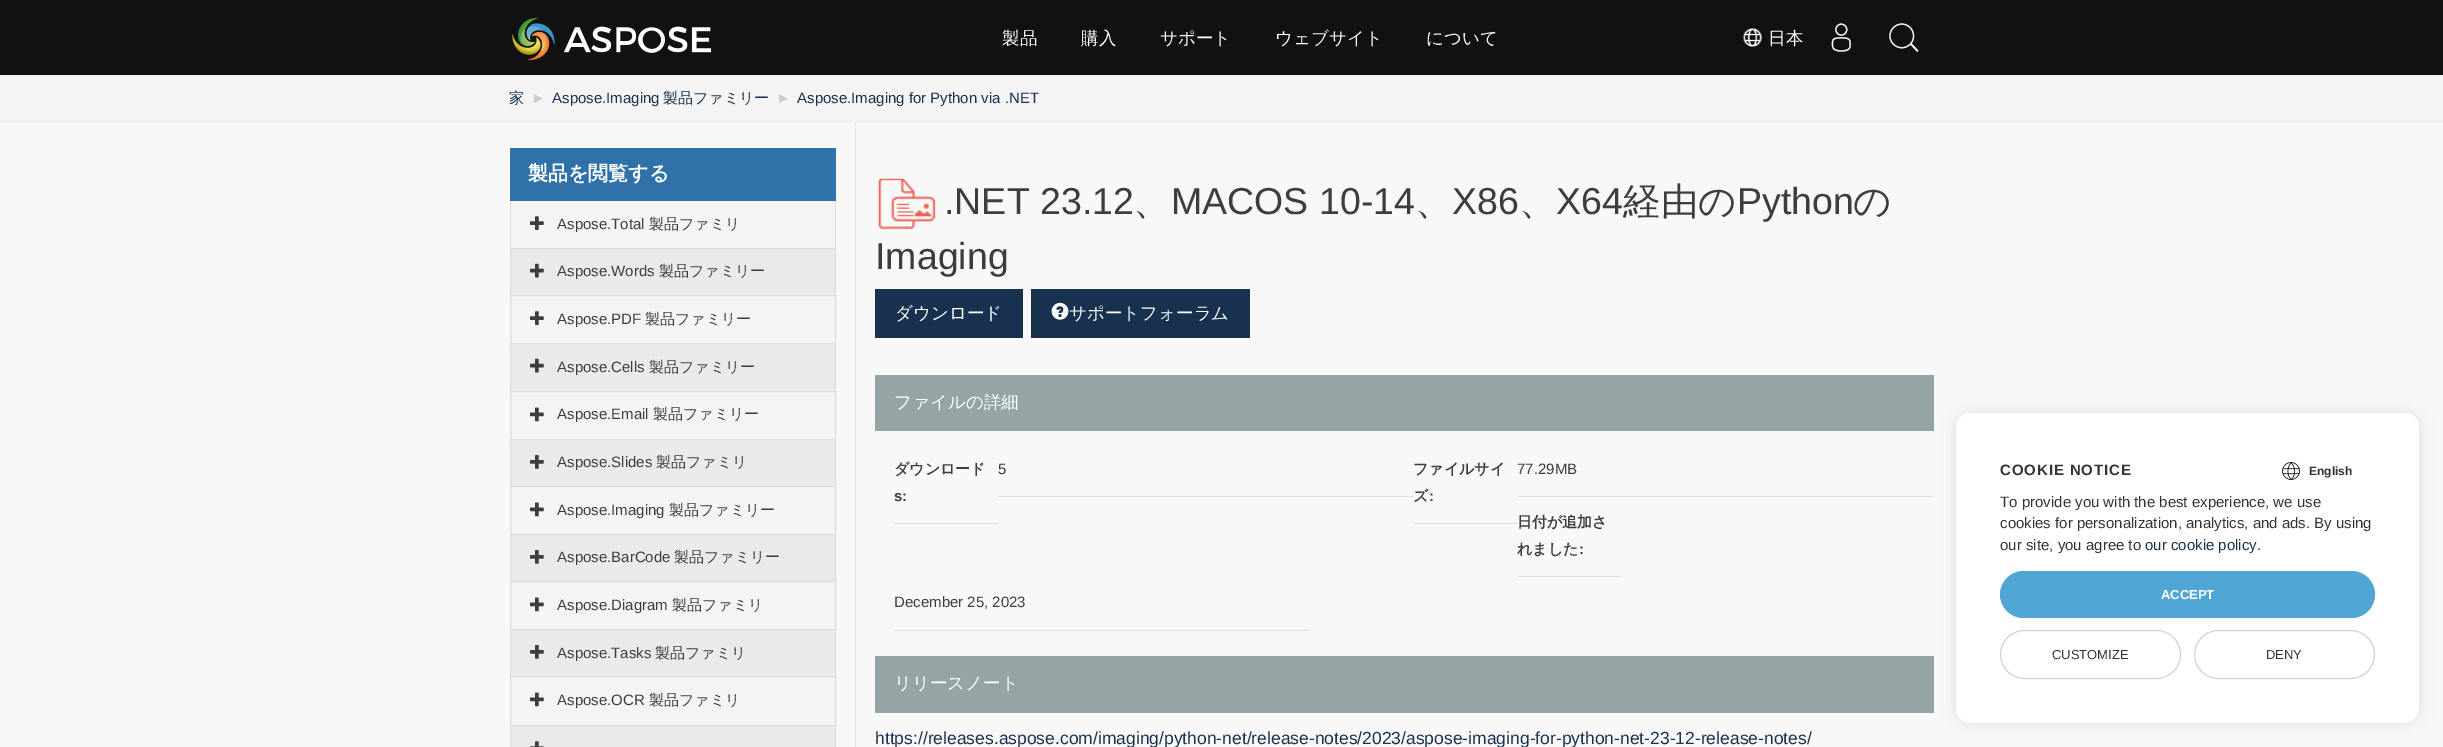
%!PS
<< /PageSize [2443 747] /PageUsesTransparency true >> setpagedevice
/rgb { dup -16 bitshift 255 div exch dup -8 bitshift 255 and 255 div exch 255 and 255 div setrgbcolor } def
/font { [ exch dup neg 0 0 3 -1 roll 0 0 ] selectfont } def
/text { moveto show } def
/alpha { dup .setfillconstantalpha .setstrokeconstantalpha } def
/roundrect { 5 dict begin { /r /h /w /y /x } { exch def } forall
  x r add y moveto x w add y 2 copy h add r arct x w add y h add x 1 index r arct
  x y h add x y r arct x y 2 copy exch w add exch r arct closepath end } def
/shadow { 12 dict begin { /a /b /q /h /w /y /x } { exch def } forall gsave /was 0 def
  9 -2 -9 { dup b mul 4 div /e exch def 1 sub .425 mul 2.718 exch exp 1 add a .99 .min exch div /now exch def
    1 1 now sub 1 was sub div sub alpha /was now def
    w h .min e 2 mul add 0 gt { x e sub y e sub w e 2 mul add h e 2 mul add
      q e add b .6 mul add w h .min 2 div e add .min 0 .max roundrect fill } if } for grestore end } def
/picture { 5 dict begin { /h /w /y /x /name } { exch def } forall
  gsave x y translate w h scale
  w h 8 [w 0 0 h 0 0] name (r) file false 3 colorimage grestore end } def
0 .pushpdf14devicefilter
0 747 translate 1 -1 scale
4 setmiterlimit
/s1 { /WenQuanYiZenHei-Medium 17.5 font 16#FFFFFF rgb } def
/s2 { /WenQuanYiZenHei-Medium 15 font 16#17314F rgb } def
/s3 { /LiberationSans-Regular 15 font 16#CCCCCC rgb } def
/s4 { /LiberationSans-Regular 15 font 16#17314F rgb } def
/s5 { /WenQuanYiZenHei-Bold 20 font 16#FFFFFF rgb } def
/s6 { /LiberationSans-Regular 15 font 16#3D3D3D rgb } def
/s7 { /WenQuanYiZenHei-Medium 15 font 16#3D3D3D rgb } def
/s8 { /LiberationSans-Regular 37.5 font 16#3D3D3D rgb } def
/s9 { /WenQuanYiZenHei-Medium 37.5 font 16#3D3D3D rgb } def
/s10 { /WenQuanYiZenHei-Bold 15 font 16#3D3D3D rgb } def
/s11 { /LiberationSans-Bold 15 font 16#3D3D3D rgb } def
/s12 { /LiberationSans-Regular 15 font 16#333333 rgb } def
/s13 { /LiberationSans-Regular 17.5 font 16#17314F rgb } def
/s14 { /LiberationSans-Bold 12 font 16#333333 rgb } def
/s15 { /LiberationSans-Bold 13 font 16#FFFFFF rgb } def
/s16 { /LiberationSans-Regular 13 font 16#333333 rgb } def
16#F4F4F4 rgb
0 0 2443 747 rectfill
16#111111 rgb
0 0 2443 75 rectfill
(pic1.raw) 512 18 199 43 picture
s1
(製品) 1002 44 text
(購入) 1081 44 text
(サポート) 1160 44 text
(ウェブサイト) 1275 44 text
(について) 1426 44 text
(pic2.raw) 1743 28 19 19 picture
(日本) 1768 44 text
(pic3.raw) 1831 23 20 29 picture
(pic4.raw) 1889 23 30 29 picture
16#E9E9E9 rgb
0 121 2443 1 rectfill
s2
(家) 509 103 text
s3
(►) 531 103 text
s4
(Aspose.Imaging) 552 103 text
s2
(製品ファミリー) 663 103 text
s3
(►) 776 103 text
s4
(Aspose.Imaging for Python via .NET) 797 103 text
16#F8F8F8 rgb
0 123 2443 624 rectfill
16#E3E3E3 rgb
855 123 1 624 rectfill
16#3071A9 rgb
510 148 326 53 rectfill
s5
(製品を閲覧する) 528 180 text
16#F4F4F4 rgb
511 201 324 47 rectfill
16#DDDDDD rgb
835 201 1 48 rectfill
510 201 1 48 rectfill
(pic5.raw) 530 216 14 14 picture
s6
(Aspose.Total) 557 229 text
s7
(製品ファミリ) 649 229 text
16#EAEAEA rgb
510.5 248.5 moveto 835.5 248.5 lineto 835.5 295.5 lineto 510.5 295.5 lineto closepath gsave fill grestore
16#DDDDDD rgb
stroke
(pic6.raw) 530 263 14 15 picture
s6
(Aspose.Words) 557 276 text
s7
(製品ファミリー) 659 276 text
16#F4F4F4 rgb
510.5 295.5 moveto 835.5 295.5 lineto 835.5 343.5 lineto 510.5 343.5 lineto closepath gsave fill grestore
16#DDDDDD rgb
stroke
(pic5.raw) 530 311 14 14 picture
s6
(Aspose.PDF) 557 324 text
s7
(製品ファミリー) 645 324 text
16#EAEAEA rgb
511 344 324 47 rectfill
16#DDDDDD rgb
510.5 343.5 325 49 rectstroke
(pic6.raw) 530 358 14 15 picture
s6
(Aspose.Cells) 557 372 text
s7
(製品ファミリー) 649 372 text
16#F4F4F4 rgb
510.5 391.5 moveto 835.5 391.5 lineto 835.5 439.5 lineto 510.5 439.5 lineto closepath gsave fill grestore
16#DDDDDD rgb
stroke
(pic7.raw) 530 407 14 15 picture
s6
(Aspose.Email) 557 419 text
s7
(製品ファミリー) 653 419 text
16#EAEAEA rgb
511 440 324 46 rectfill
16#DDDDDD rgb
510.5 439.5 325 48 rectstroke
(pic8.raw) 530 455 14 14 picture
s6
(Aspose.Slides) 557 467 text
s7
(製品ファミリ) 656 467 text
16#F4F4F4 rgb
510.5 486.5 moveto 835.5 486.5 lineto 835.5 534.5 lineto 510.5 534.5 lineto closepath gsave fill grestore
16#DDDDDD rgb
stroke
(pic7.raw) 530 502 14 15 picture
s6
(Aspose.Imaging) 557 515 text
s7
(製品ファミリー) 669 515 text
16#EAEAEA rgb
511 535 324 46 rectfill
16#DDDDDD rgb
510.5 534.5 325 48 rectstroke
(pic8.raw) 530 550 14 14 picture
s6
(Aspose.BarCode) 557 562 text
s7
(製品ファミリー) 674 562 text
16#F4F4F4 rgb
510.5 581.5 moveto 835.5 581.5 lineto 835.5 629.5 lineto 510.5 629.5 lineto closepath gsave fill grestore
16#DDDDDD rgb
stroke
(pic7.raw) 530 597 14 15 picture
s6
(Aspose.Diagram) 557 610 text
s7
(製品ファミリ) 672 610 text
16#EAEAEA rgb
511 630 324 46 rectfill
16#DDDDDD rgb
510.5 629.5 325 48 rectstroke
(pic8.raw) 530 645 14 14 picture
s6
(Aspose.Tasks) 557 658 text
s7
(製品ファミリ) 655 658 text
16#F4F4F4 rgb
510.5 676.5 moveto 835.5 676.5 lineto 835.5 725.5 lineto 510.5 725.5 lineto closepath gsave fill grestore
16#DDDDDD rgb
stroke
(pic7.raw) 530 692 14 15 picture
s6
(Aspose.OCR) 557 705 text
s7
(製品ファミリ) 649 705 text
16#EAEAEA rgb
510.5 725.5 moveto 835.5 725.5 lineto 835.5 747.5 lineto 510.5 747.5 lineto closepath gsave fill grestore
16#DDDDDD rgb
stroke
(pic9.raw) 530 741 14 6 picture
(pic10.raw) 878 178 58 51 picture
s8
(.NET 23.12) 944 214 text
s9
(、) 1133 214 text
s8
(MACOS 10-14) 1171 214 text
s9
(、) 1415 214 text
s8
(X86) 1452 214 text
s9
(、) 1519 214 text
s8
(X64) 1556 214 text
s9
(経由の) 1623 214 text
s8
(Python) 1737 214 text
s9
(の) 1853 214 text
s8
(Imaging) 875 269 text
16#17314F rgb
875 289 148 49 rectfill
s1
(ダウンロード) 895 319 text
16#17314F rgb
1031 289 219 49 rectfill
(pic11.raw) 1051 302 18 18 picture
s1
(サポートフォーラム) 1069 319 text
16#95A5A6 rgb
875 375 1059 56 rectfill
s1
(ファイルの詳細) 894 408 text
16#DDDDDD rgb
894 523 104 1 rectfill
s10
(ダウンロード) 894 474 text
s11
(s:) 894 501 text
16#DDDDDD rgb
998 496 416 1 rectfill
s12
(5) 998 474 text
16#DDDDDD rgb
1414 523 104 1 rectfill
s10
(ファイルサイ) 1413 474 text
(ズ) 1413 501 text
s11
(:) 1429 501 text
16#DDDDDD rgb
1518 496 415 1 rectfill
s6
(77.29MB) 1517 474 text
16#DDDDDD rgb
1518 576 103 1 rectfill
s10
(日付が追加さ) 1517 527 text
(れました) 1517 554 text
s11
(:) 1579 554 text
16#DDDDDD rgb
894 630 416 1 rectfill
s6
(December 25, 2023) 894 607 text
16#95A5A6 rgb
875 656 1059 57 rectfill
s1
(リリースノート) 894 689 text
s13
(https://releases.aspose.com/imaging/python-net/release-notes/2023/aspose-imaging-for-python-net-23-12-release-notes/) 875 744 text
16#000000 rgb
1956 413 463 310 15 8 0.1 shadow
16#FFFFFF rgb
1956 413 463 310 15 roundrect fill
1971 413 moveto 2404 413 lineto 2412.5 413 2419 419.5 2419 428 curveto 2419 486 lineto 1956 486 lineto 1956 428 lineto 1956 419.5 1962.5 413 1971 413 curveto closepath fill
/LiberationSans-Bold 15 font
16#333333 rgb
2000 475 moveto 0.9 0 (COOKIE NOTICE) ashow
(pic12.raw) 2282 462 18 18 picture
s14
(English) 2309 475 text
s12
(To provide you with the best experience, we use) 2000 507 text
(cookies for personalization, analytics, and ads. By using) 2000 528 text
(our site, you agree to) 2000 550 text
s4
(our cookie policy) 2145 550 text
s12
(.) 2257 550 text
16#4FA5D3 rgb
2000 571 375 47 23.5 roundrect fill
s15
(ACCEPT) 2161 599 text
16#D3D3D3 rgb
2000.5 630.5 180 48 24 roundrect stroke
s16
(CUSTOMIZE) 2052 659 text
16#D3D3D3 rgb
2194.5 630.5 180 48 24 roundrect stroke
s16
(DENY) 2266 659 text
.poppdf14devicefilter showpage
